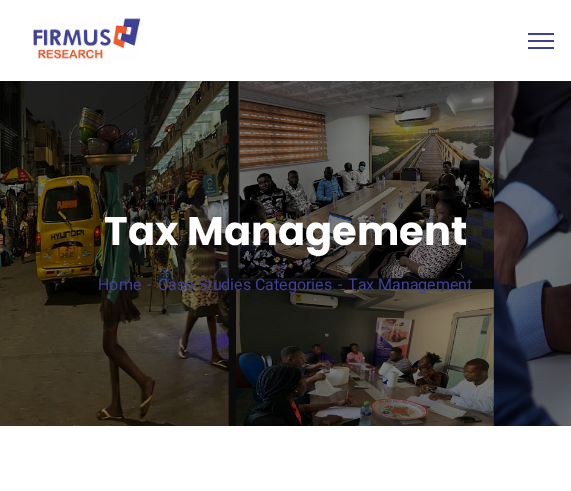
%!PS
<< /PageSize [571 491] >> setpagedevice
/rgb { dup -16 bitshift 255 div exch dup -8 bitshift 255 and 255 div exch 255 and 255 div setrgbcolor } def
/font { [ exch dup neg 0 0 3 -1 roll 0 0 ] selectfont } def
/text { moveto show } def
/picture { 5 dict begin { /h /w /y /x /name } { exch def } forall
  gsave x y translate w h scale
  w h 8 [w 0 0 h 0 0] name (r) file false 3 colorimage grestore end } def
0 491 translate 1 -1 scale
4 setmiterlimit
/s1 { /Poppins-Bold 40 font 16#FFFFFF rgb } def
/s2 { /Roboto-Regular 16 font 16#3E4096 rgb } def
16#FFFFFF rgb
0 0 571 491 rectfill
(pic1.raw) 33 18 108 41 picture
16#3E4096 rgb
528 33 26 2 rectfill
528 40 26 2 rectfill
528 47 26 2 rectfill
(pic2.raw) 0 81 571 345 picture
s1
(Tax Management) 104 245 text
s2
(Home) 98 290 text
(-) 147 290 text
(Case Studies Categories) 158 290 text
(-) 338 290 text
(Tax Management) 348 290 text
showpage
